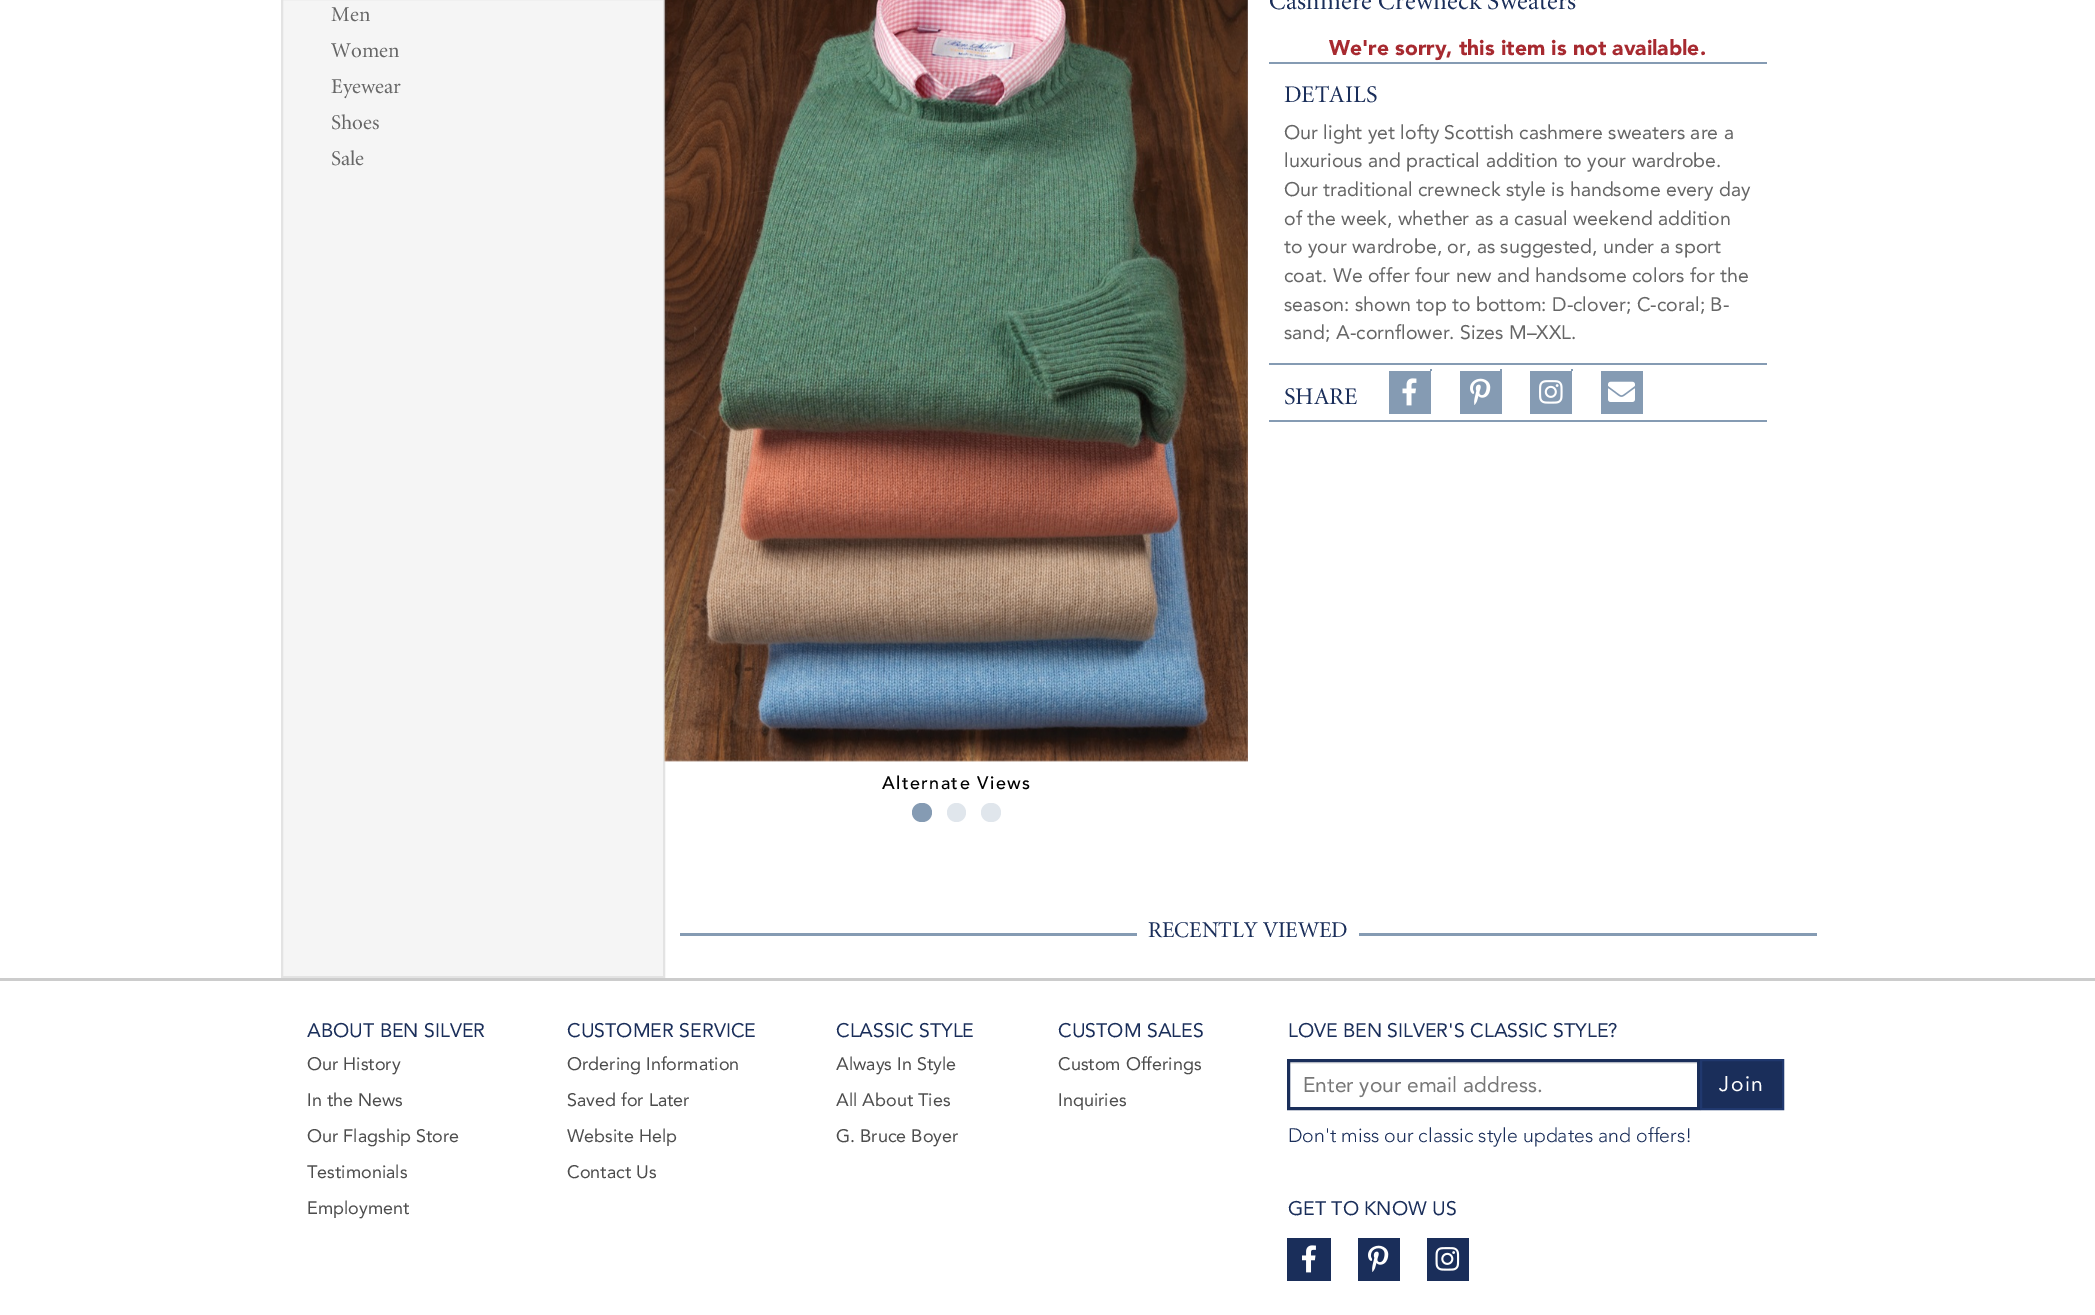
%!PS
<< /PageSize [2095 1315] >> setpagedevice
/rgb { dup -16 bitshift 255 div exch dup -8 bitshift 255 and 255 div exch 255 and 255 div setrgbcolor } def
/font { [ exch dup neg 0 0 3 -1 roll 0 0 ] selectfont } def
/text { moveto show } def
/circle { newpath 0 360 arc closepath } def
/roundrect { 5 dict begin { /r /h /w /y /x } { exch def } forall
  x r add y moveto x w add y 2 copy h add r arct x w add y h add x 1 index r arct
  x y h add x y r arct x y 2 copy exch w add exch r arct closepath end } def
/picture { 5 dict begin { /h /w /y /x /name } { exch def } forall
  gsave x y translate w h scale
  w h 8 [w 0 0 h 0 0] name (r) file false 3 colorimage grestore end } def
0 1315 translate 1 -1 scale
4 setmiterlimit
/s1 { /Minion-Regular 21 font 16#666666 rgb } def
/s2 { /Avenir-Black 21 font 16#A72A30 rgb } def
/s3 { /Minion-Regular 24 font 16#1A2E5A rgb } def
/s4 { /Avenir-Regular 19.5 font 16#666666 rgb } def
/s5 { /Minion-Regular 22.5 font 16#1A2E5A rgb } def
/s6 { /Avenir-Regular 19.5 font 16#1A2E5A rgb } def
/s7 { /Avenir-Regular 18 font 16#4D4D4D rgb } def
/s8 { /Avenir-Regular 21 font 16#777777 rgb } def
/s9 { /Avenir-Light 19.5 font 16#1A2E5A rgb } def
16#FFFFFF rgb
0 0 2095 1315 rectfill
16#F5F5F5 rgb
282 -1 moveto 664 -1 lineto 664 977 lineto 282 977 lineto closepath gsave fill grestore
16#E3E3E3 rgb
2 setlinewidth
stroke
s1
(Men) 331 21 text
(Women) 331 57 text
(Eyewear) 331 93 text
(Shoes) 331 129 text
(Sale) 331 165 text
/Minion-Regular 25.25 font
16#1A2E5A rgb
1269 9 moveto 0.25 0 (Cashmere Crewneck Sweaters) ashow
s2
(We're sorry, this item is not available.) 1329 55 text
16#859BB3 rgb
1269 363 498 2 rectfill
1269 62 498 2 rectfill
s3
(DETAILS) 1284 102 text
s4
(Our light yet lofty Scottish cashmere sweaters are a) 1284 139 text
(luxurious and practical addition to your wardrobe.) 1284 167 text
(Our traditional crewneck style is handsome every day) 1284 196 text
(of the week, whether as a casual weekend addition) 1284 225 text
(to your wardrobe, or, as suggested, under a sport) 1284 253 text
(coat. We offer four new and handsome colors for the) 1284 282 text
(season: shown top to bottom: D-clover; C-coral; B-) 1284 311 text
(sand; A-cornflower. Sizes M–XXL.) 1284 339 text
16#859BB3 rgb
1269 420 498 2 rectfill
s3
(SHARE) 1284 404 text
16#859BB3 rgb
1389 371 42 43 rectfill
1430 369 2 2 rectfill
(pic1.raw) 1402 378 15 28 picture
1460 371 42 43 rectfill
1500 369 2 2 rectfill
(pic2.raw) 1470 378 21 27 picture
1530 371 42 43 rectfill
1571 369 2 2 rectfill
(pic3.raw) 1539 380 24 24 picture
1601 371 42 43 rectfill
(pic4.raw) 1608 381 27 21 picture
(pic5.raw) 664 0 584 762 picture
912 803 20 19 9.5 roundrect fill
16#E0E6EC rgb
956.5 812.5 9.5 circle fill
981 803 20 19 9.5 roundrect fill
/Avenir-Medium 18 font
16#000000 rgb
882 789 moveto 1.4 0 (Alternate Views) ashow
16#859BB3 rgb
680 933 457 3 rectfill
s5
(RECENTLY VIEWED) 1148 937 text
16#859BB3 rgb
1359 933 458 3 rectfill
16#CCCCCC rgb
0 978 2095 3 rectfill
s6
(ABOUT BEN SILVER) 307 1037 text
s7
(Our History) 307 1070 text
(In the News) 307 1106 text
(Our Flagship Store) 307 1142 text
(Testimonials) 307 1178 text
(Employment) 307 1214 text
s6
(CUSTOMER SERVICE) 567 1037 text
s7
(Ordering Information) 567 1070 text
(Saved for Later) 567 1106 text
(Website Help) 567 1142 text
(Contact Us) 567 1178 text
s6
(CLASSIC STYLE) 836 1037 text
s7
(Always In Style) 836 1070 text
(All About Ties) 836 1106 text
(G. Bruce Boyer) 836 1142 text
s6
(CUSTOM SALES) 1058 1037 text
s7
(Custom Offerings) 1058 1070 text
(Inquiries) 1058 1106 text
s6
(LOVE BEN SILVER'S CLASSIC STYLE?) 1288 1037 text
16#ECECEC rgb
1290 1062 407 2 rectfill
16#1A2E5A rgb
3 setlinewidth
1288.5 1060.5 410 48 rectstroke
s8
(Enter your email address.) 1303 1092 text
16#1A2E5A rgb
1701 1060 moveto 1783 1060 lineto 1783 1109 lineto 1701 1109 lineto closepath gsave fill grestore
16#20386E rgb
2 setlinewidth
stroke
16#FFFFFF rgb
1719 1091 moveto 1.5 0 (Join) ashow
s9
(Don't miss our classic style updates and offers!) 1288 1142 text
s6
(GET TO KNOW US) 1288 1215 text
1287 1238 44 43 rectfill
(pic6.raw) 1302 1245 14 28 picture
1358 1238 42 43 rectfill
(pic7.raw) 1368 1245 21 27 picture
1427 1238 42 43 rectfill
(pic8.raw) 1435 1247 25 24 picture
showpage
